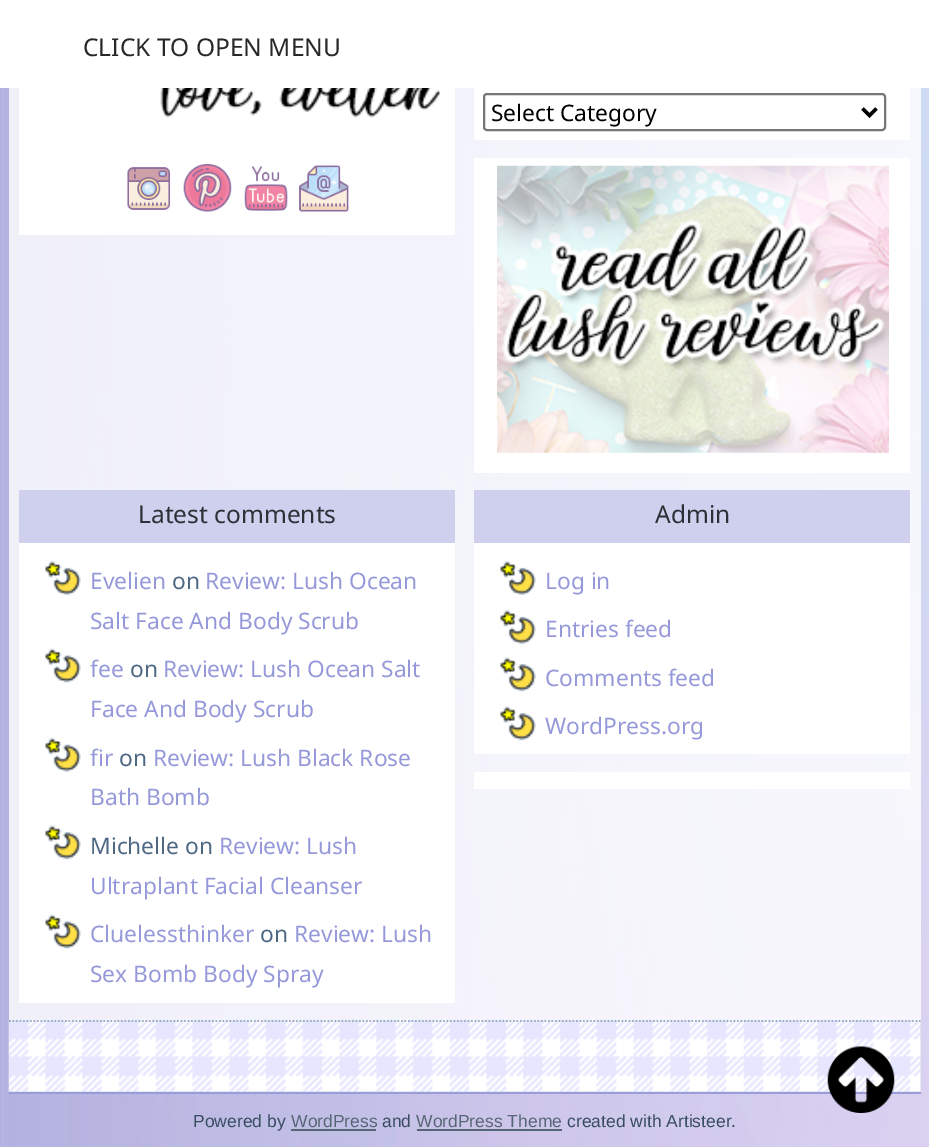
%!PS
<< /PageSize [929 1147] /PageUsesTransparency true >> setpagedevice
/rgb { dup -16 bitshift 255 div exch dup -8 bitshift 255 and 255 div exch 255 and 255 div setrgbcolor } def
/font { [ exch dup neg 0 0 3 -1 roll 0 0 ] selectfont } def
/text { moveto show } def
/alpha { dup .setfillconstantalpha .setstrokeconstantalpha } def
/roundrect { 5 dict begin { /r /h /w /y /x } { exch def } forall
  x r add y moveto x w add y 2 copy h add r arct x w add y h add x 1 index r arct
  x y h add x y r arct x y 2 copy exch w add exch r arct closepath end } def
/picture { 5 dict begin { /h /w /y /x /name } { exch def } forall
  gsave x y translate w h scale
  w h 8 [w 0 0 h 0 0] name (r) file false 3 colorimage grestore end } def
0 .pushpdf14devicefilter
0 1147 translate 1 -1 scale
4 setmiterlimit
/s1 { /NotoSans-Regular 24.5 font 16#282828 rgb } def
/s2 { /NotoSans-Regular 22.75 font 16#000000 rgb } def
/s3 { /NotoSans-Regular 24.5 font 16#2C3137 rgb } def
/s4 { /NotoSans-Regular 22.75 font 16#9699D9 rgb } def
/s5 { /NotoSans-Regular 22.75 font 16#4E6883 rgb } def
/s6 { /LiberationSans-Regular 17.5 font 16#394C60 rgb } def
/s7 { /LiberationSans-Regular 17.5 font 16#576675 rgb } def
16#FFFFFF rgb
0 0 929 1147 rectfill
s1
(CLICK TO OPEN MENU) 83 56 text
(pic1.raw) 0 88 929 1059 picture
0.8 alpha
16#8387D2 rgb
9 1092 912 2 rectfill
1 alpha
16#FFFFFF rgb
19 88 436 147 rectfill
(pic2.raw) 160 88 280 30 picture
(pic3.raw) 127 167 43 43 picture
(pic4.raw) 183 164 49 48 picture
(pic5.raw) 244 166 44 45 picture
(pic6.raw) 299 165 50 47 picture
474 88 436 52 rectfill
16#767676 rgb
2 setlinewidth
484 94 401 36 3 roundrect stroke
16#000000 rgb
3.5 setlinewidth
862.5 108.5 moveto 869.5 115.5 lineto 876.5 108.5 lineto stroke
s2
(Select Category) 491 121 text
16#FFFFFF rgb
474 158 436 315 rectfill
(pic7.raw) 497 165 392 288 picture
16#CED0ED rgb
19 490 436 53 rectfill
s3
(Latest comments) 138 523 text
16#FFFFFF rgb
19 543 436 460 rectfill
(pic8.raw) 45 561 36 34 picture
s4
(Evelien) 90 589 text
s5
(on) 172 589 text
s4
(Review: Lush Ocean) 205 589 text
(Salt Face And Body Scrub) 90 629 text
(pic9.raw) 45 648 36 35 picture
(fee) 90 677 text
s5
(on) 130 677 text
s4
(Review: Lush Ocean Salt) 163 677 text
(Face And Body Scrub) 90 717 text
(pic10.raw) 45 738 36 34 picture
(fir) 90 766 text
s5
(on) 119 766 text
s4
(Review: Lush Black Rose) 153 766 text
(Bath Bomb) 90 805 text
(pic11.raw) 45 825 36 35 picture
s5
(Michelle on) 90 854 text
s4
(Review: Lush) 219 854 text
(Ultraplant Facial Cleanser) 90 894 text
(pic9.raw) 45 914 36 35 picture
(Cluelessthinker) 90 942 text
s5
(on) 260 942 text
s4
(Review: Lush) 294 942 text
(Sex Bomb Body Spray) 90 982 text
16#CED0ED rgb
474 490 436 53 rectfill
s3
(Admin) 655 523 text
16#FFFFFF rgb
474 543 436 211 rectfill
(pic8.raw) 500 561 36 34 picture
s4
(Log in) 545 589 text
(pic12.raw) 500 610 36 34 picture
(Entries feed) 545 637 text
(pic11.raw) 500 657 36 35 picture
(Comments feed) 545 686 text
(pic11.raw) 500 706 36 35 picture
(WordPress.org) 545 734 text
16#FFFFFF rgb
474 772 436 17 rectfill
16#CFD8E2 rgb
9 1020 912 72 rectfill
(pic13.raw) 8 1019 913 73 picture
16#9CAFC4 rgb
1.8 setlinewidth
[1.75 1.75] 0 setdash
9 1021 moveto 920.5 1021 lineto stroke
s6
(Powered by) 193 1127 text
s7
(WordPress) 291 1127 text
291 1129 85 2 rectfill
s6
(and) 382 1127 text
s7
(WordPress Theme) 416 1127 text
417 1129 145 2 rectfill
s6
(created with Artisteer.) 567 1127 text
(pic14.raw) 827 1046 68 67 picture
.poppdf14devicefilter showpage
